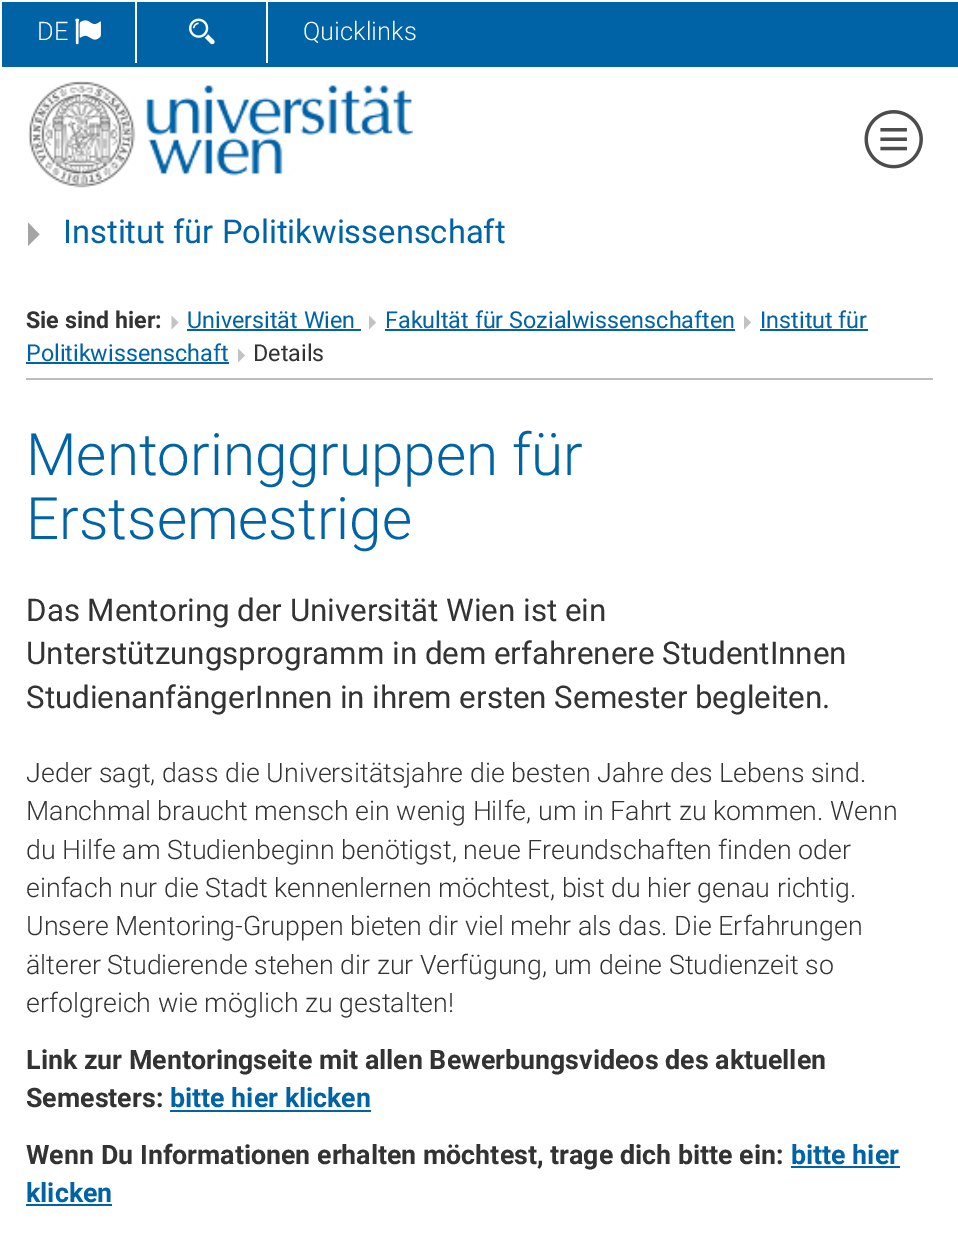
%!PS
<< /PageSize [958 1256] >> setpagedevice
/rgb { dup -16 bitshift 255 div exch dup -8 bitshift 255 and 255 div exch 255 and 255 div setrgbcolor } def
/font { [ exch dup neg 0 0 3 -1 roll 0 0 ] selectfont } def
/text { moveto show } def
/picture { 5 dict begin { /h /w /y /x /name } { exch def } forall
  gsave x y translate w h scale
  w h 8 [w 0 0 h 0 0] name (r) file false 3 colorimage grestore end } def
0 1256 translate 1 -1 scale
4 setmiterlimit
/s1 { /Roboto-Light 25.5 font 16#FFFFFF rgb } def
/s2 { /Roboto-Regular 32.7 font 16#0063A6 rgb } def
/s3 { /Roboto-Bold 23.3 font 16#333333 rgb } def
/s4 { /Roboto-Regular 23.3 font 16#0063A6 rgb } def
/s5 { /Roboto-Regular 23.3 font 16#333333 rgb } def
/s6 { /Roboto-Light 58.25 font 16#0063A6 rgb } def
/s7 { /Roboto-Regular 31.25 font 16#333333 rgb } def
/s8 { /Roboto-Light 26.8 font 16#333333 rgb } def
/s9 { /Roboto-Bold 26.8 font 16#333333 rgb } def
/s10 { /Roboto-Bold 26.8 font 16#0063A6 rgb } def
16#FFFFFF rgb
0 0 958 1256 rectfill
16#0063A6 rgb
2 2 956 65 rectfill
16#FFFFFF rgb
135 2 2 61 rectfill
s1
(DE) 37 40 text
(pic1.raw) 75 18 26 27 picture
266 2 2 61 rectfill
(pic2.raw) 189 18 26 27 picture
(Quicklinks) 303 40 text
(pic3.raw) 28 81 385 107 picture
16#A4A4A4 rgb
28 222.5 moveto 28 246 lineto 39.5 234.5 lineto closepath fill
s2
(Institut für Politikwissenschaft) 63 243 text
(pic4.raw) 864 110 59 59 picture
s3
(Sie sind hier:) 26 328 text
s4
(Universität Wien) 187 328 text
16#C2C2C2 rgb
171.5 315.5 moveto 171.5 329.5 lineto 178.5 322.5 lineto closepath fill
16#0063A6 rgb
187 329 174 2 rectfill
(Fakultät für Sozialwissenschaften) 385 328 text
16#C2C2C2 rgb
369 315.5 moveto 369 329.5 lineto 376 322.5 lineto closepath fill
16#0063A6 rgb
385 329 350 2 rectfill
(Institut für) 760 328 text
16#C2C2C2 rgb
744 315.5 moveto 744 329.5 lineto 751 322.5 lineto closepath fill
16#0063A6 rgb
760 329 108 2 rectfill
(Politikwissenschaft) 26 361 text
26 362 203 2 rectfill
s5
(Details) 253 361 text
16#C2C2C2 rgb
238 348.5 moveto 238 362.5 lineto 245 355.5 lineto closepath fill
16#BDBDBD rgb
26 378 907 2 rectfill
s6
(Mentoringgruppen für) 26 475 text
(Erstsemestrige) 26 539 text
s7
(Das Mentoring der Universität Wien ist ein) 26 621 text
(Unterstützungsprogramm in dem erfahrenere StudentInnen) 26 664 text
(StudienanfängerInnen in ihrem ersten Semester begleiten.) 26 708 text
s8
(Jeder sagt, dass die Universitätsjahre die besten Jahre des Lebens sind.) 26 782 text
(Manchmal braucht mensch ein wenig Hilfe, um in Fahrt zu kommen. Wenn) 26 820 text
(du Hilfe am Studienbeginn benötigst, neue Freundschaften finden oder) 26 859 text
(einfach nur die Stadt kennenlernen möchtest, bist du hier genau richtig.) 26 897 text
(Unsere Mentoring-Gruppen bieten dir viel mehr als das. Die Erfahrungen) 26 935 text
(älterer Studierende stehen dir zur Verfügung, um deine Studienzeit so) 26 974 text
(erfolgreich wie möglich zu gestalten!) 26 1012 text
s9
(Link zur Mentoringseite mit allen Bewerbungsvideos des aktuellen) 26 1069 text
(Semesters:) 26 1107 text
s10
(bitte hier klicken) 170 1107 text
170 1110 201 2 rectfill
s9
(Wenn Du Informationen erhalten möchtest, trage dich bitte ein:) 26 1164 text
s10
(bitte hier) 791 1164 text
791 1166 109 2 rectfill
(klicken) 26 1202 text
26 1204 86 2 rectfill
showpage
